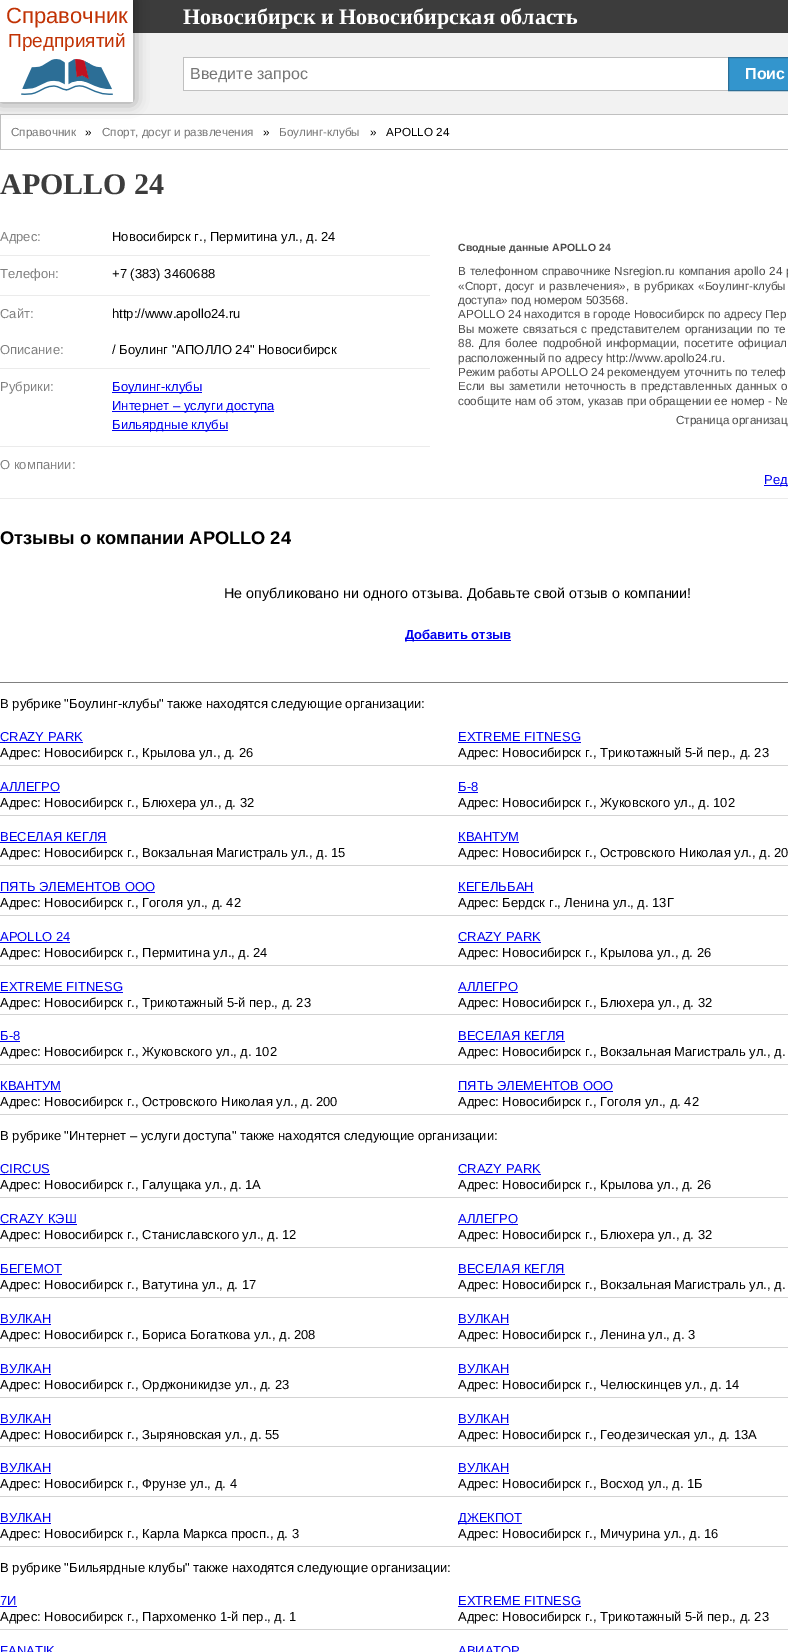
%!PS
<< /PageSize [788 1652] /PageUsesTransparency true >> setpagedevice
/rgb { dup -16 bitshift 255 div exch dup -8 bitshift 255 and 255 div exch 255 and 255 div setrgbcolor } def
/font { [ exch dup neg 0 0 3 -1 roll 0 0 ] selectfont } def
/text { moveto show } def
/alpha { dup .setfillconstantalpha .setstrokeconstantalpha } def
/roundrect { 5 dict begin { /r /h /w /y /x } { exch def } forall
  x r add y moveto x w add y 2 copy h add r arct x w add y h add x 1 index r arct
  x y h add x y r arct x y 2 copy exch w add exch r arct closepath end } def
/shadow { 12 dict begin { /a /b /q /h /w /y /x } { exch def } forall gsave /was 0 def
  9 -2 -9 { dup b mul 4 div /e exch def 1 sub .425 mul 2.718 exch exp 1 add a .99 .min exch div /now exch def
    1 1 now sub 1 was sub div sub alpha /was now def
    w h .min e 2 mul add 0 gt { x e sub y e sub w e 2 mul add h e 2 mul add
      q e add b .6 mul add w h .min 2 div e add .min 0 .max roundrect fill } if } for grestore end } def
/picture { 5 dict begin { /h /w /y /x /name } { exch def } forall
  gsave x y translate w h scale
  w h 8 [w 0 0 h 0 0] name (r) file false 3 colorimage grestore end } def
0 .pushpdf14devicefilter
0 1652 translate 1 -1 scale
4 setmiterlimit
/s1 { /LiberationSans-Regular 22 font 16#C13204 rgb } def
/s2 { /LiberationSans-Regular 19 font 16#C13204 rgb } def
/s3 { /LiberationSerif-Bold 22.1 font 16#FFFFFF rgb } def
/s4 { /LiberationSans-Regular 16 font 16#757575 rgb } def
/s5 { /LiberationSans-Bold 16 font 16#FFFFFF rgb } def
/s6 { /LiberationSans-Regular 11.7 font 16#757575 rgb } def
/s7 { /LiberationSans-Regular 11.7 font 16#000000 rgb } def
/s8 { /LiberationSerif-Bold 30 font 16#3C3C3C rgb } def
/s9 { /LiberationSans-Regular 13 font 16#808080 rgb } def
/s10 { /LiberationSans-Regular 13 font 16#000000 rgb } def
/s11 { /LiberationSans-Regular 13 font 16#0000EE rgb } def
/s12 { /LiberationSans-Bold 10.5 font 16#4B4B4B rgb } def
/s13 { /LiberationSans-Regular 11.7 font 16#4B4B4B rgb } def
/s14 { /LiberationSans-Bold 18.25 font 16#000000 rgb } def
/s15 { /LiberationSans-Regular 14.3 font 16#000000 rgb } def
/s16 { /LiberationSans-Bold 13 font 16#0000EE rgb } def
16#FFFFFF rgb
0 0 788 1652 rectfill
16#3C3C3C rgb
133 0 655 33 rectfill
16#F2F2F2 rgb
0 33 788 81 rectfill
16#C0C0C0 rgb
0 114 788 1 rectfill
0 149 788 1 rectfill
0 115 1 35 rectfill
16#000000 rgb
0 0 133 102 0 7.5 0.4 shadow
16#FFFFFF rgb
0 0 133 102 rectfill
s1
(Справочник) 6 23 text
s2
(Предприятий) 8 47 text
(pic1.raw) 21 59 92 36 picture
s3
(Новосибирск и Новосибирская область) 183 24 text
184 58 544 32 rectfill
16#C0C0C0 rgb
183 57 545 1 rectfill
183 90 545 1 rectfill
183 57 1 34 rectfill
s4
(Введите запрос) 190 79 text
16#3395CD rgb
728.5 57.5 moveto 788.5 57.5 lineto 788.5 90.5 lineto 728.5 90.5 lineto closepath gsave fill grestore
16#2C6E96 rgb
stroke
s5
(Поис) 745 79 text
s6
(Справочник) 11 136 text
s7
(») 85 136 text
s6
(Спорт, досуг и развлечения) 102 136 text
s7
(») 263 136 text
s6
(Боулинг-клубы) 279 136 text
s7
(»   APOLLO 24) 370 136 text
s8
(APOLLO 24) 0 194 text
s9
(Адрес:) 0 241 text
s10
(Новосибирск г., Пермитина ул., д. 24) 112 241 text
16#EBEBEB rgb
0 255 430 1 rectfill
s9
(Телефон:) 0 278 text
s10
(+7 \(383\) 3460688) 112 278 text
16#EBEBEB rgb
0 295 430 1 rectfill
s9
(Сайт:) 0 318 text
s10
(http://www.apollo24.ru) 112 318 text
s9
(Описание:) 0 354 text
s10
(/ Боулинг "АПОЛЛО 24" Новосибирск) 112 354 text
16#EBEBEB rgb
0 368 430 1 rectfill
s9
(Рубрики:) 0 391 text
16#0000EE rgb
112 392 90 1 rectfill
(Боулинг-клубы) 112 391 text
112 411 162 1 rectfill
(Интернет – услуги доступа) 112 410 text
112 430 116 1 rectfill
(Бильярдные клубы) 112 429 text
16#EBEBEB rgb
0 446 430 1 rectfill
s12
(Сводные данные APOLLO 24) 458 251 text
/LiberationSans-Regular 11.7 font
458 275 moveto 0.5 0 32 (В телефонном справочнике Nsregion.ru компания apollo 24 р) widthshow
458 290 moveto 1 0 32 («Спорт, досуг и развлечения»,) widthshow
634 290 moveto 1 0 32 (в рубриках «Боулинг-клубы) widthshow
(доступа» под номером 503568.) 458 304 text
(APOLLO 24 находится в городе Новосибирск по адресу Пер) 458 318 text
458 333 moveto 0.75 0 32 (Вы можете связаться с представителем организации по те) widthshow
458 347 moveto 1.5 0 32 (88. Для более подробной информации, посетите официал) widthshow
(расположенный по адресу http://www.apollo24.ru.) 458 362 text
(Режим работы APOLLO 24 рекомендуем уточнить по телеф) 458 376 text
458 390 moveto 1.25 0 32 (Если вы заметили неточность в представленных данных о) widthshow
(сообщите нам об этом, указав при обращении ее номер - №) 458 405 text
(Cтраница организац) 676 424 text
s9
(О компании:) 0 469 text
16#0000EE rgb
764 485 24 1 rectfill
(Ред) 764 484 text
16#EBEBEB rgb
0 498 788 1 rectfill
16#808080 rgb
0 682 788 1 rectfill
s14
(Отзывы о компании APOLLO 24) 0 544 text
s15
(Не опубликовано ни одного отзыва. Добавьте свой отзыв о компании!) 224 598 text
16#0000EE rgb
405 640 106 1 rectfill
s16
(Добавить отзыв) 405 639 text
s10
(В рубрике "Боулинг-клубы" также находятся следующие организации:) 0 708 text
s11
(CRAZY PARK) 0 741 text
0 742 83 1 rectfill
s10
(Адрес: Новосибирск г., Крылова ул., д. 26) 0 757 text
16#D3D3D3 rgb
0 765 788 1 rectfill
s11
(EXTREME FITNESG) 458 741 text
458 742 123 1 rectfill
s10
(Адрес: Новосибирск г., Трикотажный 5-й пер., д. 23) 458 757 text
s11
(АЛЛЕГРО) 0 791 text
0 792 60 1 rectfill
s10
(Адрес: Новосибирск г., Блюхера ул., д. 32) 0 807 text
16#D3D3D3 rgb
0 815 788 1 rectfill
s11
(Б-8) 458 791 text
458 792 20 1 rectfill
s10
(Адрес: Новосибирск г., Жуковского ул., д. 102) 458 807 text
s11
(ВЕСЕЛАЯ КЕГЛЯ) 0 841 text
0 842 107 1 rectfill
s10
(Адрес: Новосибирск г., Вокзальная Магистраль ул., д. 15) 0 857 text
16#D3D3D3 rgb
0 865 788 1 rectfill
s11
(КВАНТУМ) 458 841 text
458 842 61 1 rectfill
s10
(Адрес: Новосибирск г., Островского Николая ул., д. 20) 458 857 text
s11
(ПЯТЬ ЭЛЕМЕНТОВ ООО) 0 891 text
0 892 155 1 rectfill
s10
(Адрес: Новосибирск г., Гоголя ул., д. 42) 0 907 text
16#D3D3D3 rgb
0 915 788 1 rectfill
s11
(КЕГЕЛЬБАН) 458 891 text
458 892 76 1 rectfill
s10
(Адрес: Бердск г., Ленина ул., д. 13Г) 458 907 text
s11
(APOLLO 24) 0 941 text
0 942 70 1 rectfill
s10
(Адрес: Новосибирск г., Пермитина ул., д. 24) 0 957 text
16#D3D3D3 rgb
0 965 788 1 rectfill
s11
(CRAZY PARK) 458 941 text
458 942 83 1 rectfill
s10
(Адрес: Новосибирск г., Крылова ул., д. 26) 458 957 text
s11
(EXTREME FITNESG) 0 991 text
0 992 123 1 rectfill
s10
(Адрес: Новосибирск г., Трикотажный 5-й пер., д. 23) 0 1007 text
16#D3D3D3 rgb
0 1014 788 1 rectfill
s11
(АЛЛЕГРО) 458 991 text
458 992 60 1 rectfill
s10
(Адрес: Новосибирск г., Блюхера ул., д. 32) 458 1007 text
s11
(Б-8) 0 1040 text
0 1041 20 1 rectfill
s10
(Адрес: Новосибирск г., Жуковского ул., д. 102) 0 1056 text
16#D3D3D3 rgb
0 1064 788 1 rectfill
s11
(ВЕСЕЛАЯ КЕГЛЯ) 458 1040 text
458 1041 107 1 rectfill
s10
(Адрес: Новосибирск г., Вокзальная Магистраль ул., д.) 458 1056 text
s11
(КВАНТУМ) 0 1090 text
0 1091 61 1 rectfill
s10
(Адрес: Новосибирск г., Островского Николая ул., д. 200) 0 1106 text
16#D3D3D3 rgb
0 1114 788 1 rectfill
s11
(ПЯТЬ ЭЛЕМЕНТОВ ООО) 458 1090 text
458 1091 155 1 rectfill
s10
(Адрес: Новосибирск г., Гоголя ул., д. 42) 458 1106 text
(В рубрике "Интернет – услуги доступа" также находятся следующие организации:) 0 1140 text
s11
(CIRCUS) 0 1173 text
0 1174 50 1 rectfill
s10
(Адрес: Новосибирск г., Галущака ул., д. 1А) 0 1189 text
16#D3D3D3 rgb
0 1197 788 1 rectfill
s11
(CRAZY PARK) 458 1173 text
458 1174 83 1 rectfill
s10
(Адрес: Новосибирск г., Крылова ул., д. 26) 458 1189 text
s11
(CRAZY КЭШ) 0 1223 text
0 1224 77 1 rectfill
s10
(Адрес: Новосибирск г., Станиславского ул., д. 12) 0 1239 text
16#D3D3D3 rgb
0 1247 788 1 rectfill
s11
(АЛЛЕГРО) 458 1223 text
458 1224 60 1 rectfill
s10
(Адрес: Новосибирск г., Блюхера ул., д. 32) 458 1239 text
s11
(БЕГЕМОТ) 0 1273 text
0 1274 62 1 rectfill
s10
(Адрес: Новосибирск г., Ватутина ул., д. 17) 0 1289 text
16#D3D3D3 rgb
0 1297 788 1 rectfill
s11
(ВЕСЕЛАЯ КЕГЛЯ) 458 1273 text
458 1274 107 1 rectfill
s10
(Адрес: Новосибирск г., Вокзальная Магистраль ул., д.) 458 1289 text
s11
(ВУЛКАН) 0 1323 text
0 1324 51 1 rectfill
s10
(Адрес: Новосибирск г., Бориса Богаткова ул., д. 208) 0 1339 text
16#D3D3D3 rgb
0 1347 788 1 rectfill
s11
(ВУЛКАН) 458 1323 text
458 1324 51 1 rectfill
s10
(Адрес: Новосибирск г., Ленина ул., д. 3) 458 1339 text
s11
(ВУЛКАН) 0 1373 text
0 1374 51 1 rectfill
s10
(Адрес: Новосибирск г., Орджоникидзе ул., д. 23) 0 1389 text
16#D3D3D3 rgb
0 1397 788 1 rectfill
s11
(ВУЛКАН) 458 1373 text
458 1374 51 1 rectfill
s10
(Адрес: Новосибирск г., Челюскинцев ул., д. 14) 458 1389 text
s11
(ВУЛКАН) 0 1423 text
0 1424 51 1 rectfill
s10
(Адрес: Новосибирск г., Зыряновская ул., д. 55) 0 1439 text
16#D3D3D3 rgb
0 1446 788 1 rectfill
s11
(ВУЛКАН) 458 1423 text
458 1424 51 1 rectfill
s10
(Адрес: Новосибирск г., Геодезическая ул., д. 13А) 458 1439 text
s11
(ВУЛКАН) 0 1472 text
0 1473 51 1 rectfill
s10
(Адрес: Новосибирск г., Фрунзе ул., д. 4) 0 1488 text
16#D3D3D3 rgb
0 1496 788 1 rectfill
s11
(ВУЛКАН) 458 1472 text
458 1473 51 1 rectfill
s10
(Адрес: Новосибирск г., Восход ул., д. 1Б) 458 1488 text
s11
(ВУЛКАН) 0 1522 text
0 1523 51 1 rectfill
s10
(Адрес: Новосибирск г., Карла Маркса просп., д. 3) 0 1538 text
16#D3D3D3 rgb
0 1546 788 1 rectfill
16#0000EE rgb
458 1523 64 1 rectfill
(ДЖЕКПОТ) 458 1522 text
s10
(Адрес: Новосибирск г., Мичурина ул., д. 16) 458 1538 text
(В рубрике "Бильярдные клубы" также находятся следующие организации:) 0 1572 text
s11
(7И) 0 1605 text
0 1606 17 1 rectfill
s10
(Адрес: Новосибирск г., Пархоменко 1-й пер., д. 1) 0 1621 text
16#D3D3D3 rgb
0 1629 788 1 rectfill
s11
(EXTREME FITNESG) 458 1605 text
458 1606 123 1 rectfill
s10
(Адрес: Новосибирск г., Трикотажный 5-й пер., д. 23) 458 1621 text
s11
(FANATIK) 0 1655 text
(АВИАТОР) 458 1655 text
.poppdf14devicefilter showpage
